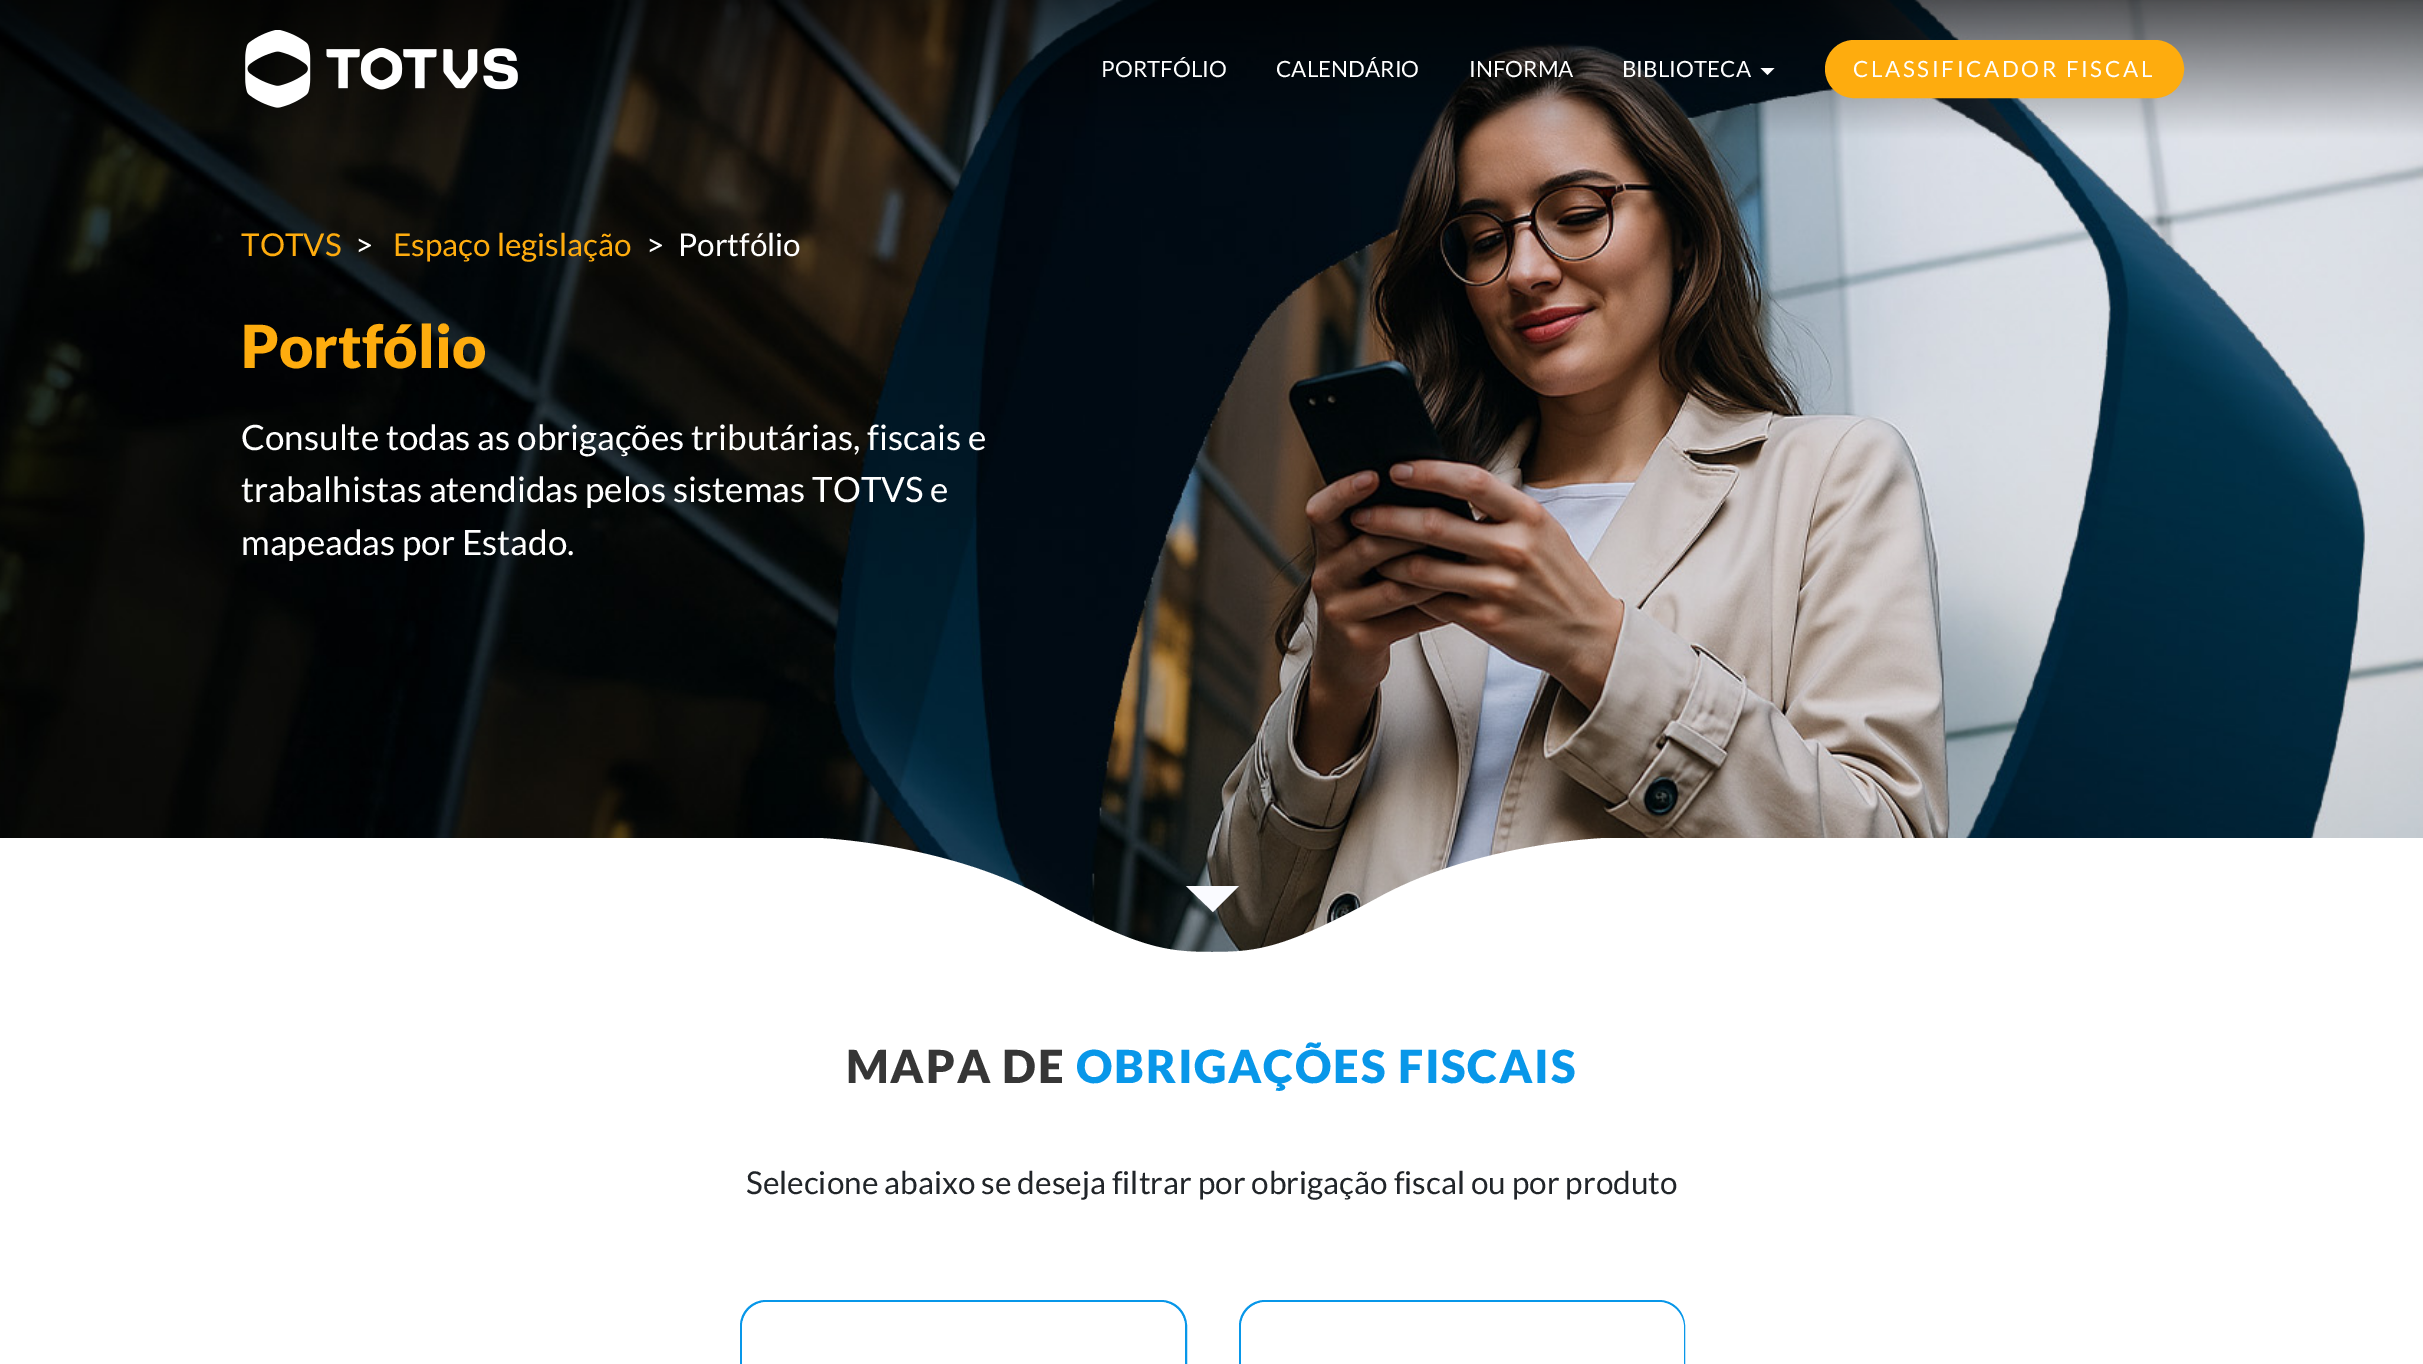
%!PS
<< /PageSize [2423 1364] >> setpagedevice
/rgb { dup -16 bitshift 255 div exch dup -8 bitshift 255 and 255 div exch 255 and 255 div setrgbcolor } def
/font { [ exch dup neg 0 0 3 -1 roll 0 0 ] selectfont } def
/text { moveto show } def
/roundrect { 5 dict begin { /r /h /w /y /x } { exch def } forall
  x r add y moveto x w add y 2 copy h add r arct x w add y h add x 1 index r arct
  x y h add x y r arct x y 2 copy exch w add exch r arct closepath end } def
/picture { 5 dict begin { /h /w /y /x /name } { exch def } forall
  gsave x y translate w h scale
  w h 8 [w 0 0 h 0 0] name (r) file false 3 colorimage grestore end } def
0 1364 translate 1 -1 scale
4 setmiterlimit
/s1 { /Lato-Regular 22.4 font 16#FFFFFF rgb } def
/s2 { /Lato-Regular 31.5 font 16#FEAC0E rgb } def
/s3 { /Lato-Regular 31.5 font 16#FFFFFF rgb } def
/s4 { /Lato-Black 59.5 font 16#FEAC0E rgb } def
/s5 { /Lato-Regular 35 font 16#FFFFFF rgb } def
/s6 { /Lato-Regular 31.5 font 16#212529 rgb } def
16#FFFFFF rgb
0 0 2423 1364 rectfill
(pic2.raw) 0 0 2423 952 picture
(pic1.raw) 245 30 273 78 picture
s1
(PORTFÓLIO) 1101 77 text
(CALENDÁRIO) 1276 77 text
(INFORMA) 1469 77 text
(BIBLIOTECA) 1622 77 text
1760.5 68 moveto 1774.5 68 lineto 1767.5 75 lineto closepath fill
16#FEAC0E rgb
1826 41 357 56 28 roundrect gsave fill grestore
2 setlinewidth
stroke
16#FFFFFF rgb
1853 77 moveto 2.6 0 (CLASSIFICADOR FISCAL) ashow
s2
(TOTVS) 241 256 text
s3
(>) 355 256 text
s2
(Espaço legislação) 393 256 text
s3
(>) 646 256 text
(Portfólio) 678 256 text
s4
(Portfólio) 241 368 text
s5
(Consulte todas as obrigações tributárias, fiscais e) 241 450 text
(trabalhistas atendidas pelos sistemas TOTVS e) 241 502 text
(mapeadas por Estado.) 241 555 text
0 838 770 114 rectfill
gsave
770 838 884 121 rectclip
1383 895 moveto 1286 948 1259 952 1212 952 curveto 1165 952 1138 948 1040 895 curveto 942 843 819 838 819 838 curveto 770 838 lineto 770 961 lineto 1654 961 lineto 1654 838 lineto 1605 838 lineto 1605 838 1481 843 1383 895 curveto closepath fill
grestore
16#FAFBFF rgb
1186 886 moveto 1239 886 lineto 1213 912 lineto closepath fill
16#FFFFFF rgb
1654 838 769 114 rectfill
/Lato-Black 45.5 font
16#363636 rgb
846 1083 moveto 1.75 0 (MAPA DE) ashow
16#0897E9 rgb
1076 1083 moveto 1.75 0 (OBRIGAÇÕES FISCAIS) ashow
s6
(Selecione abaixo se deseja filtrar por obrigação fiscal ou por produto) 746 1194 text
16#0897E9 rgb
741 1301 445 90 25 roundrect stroke
16#FFFFFF rgb
742 1302 443 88 26 roundrect fill
16#0897E9 rgb
1240 1301 444 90 25 roundrect stroke
16#FFFFFF rgb
1241 1302 443 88 26 roundrect fill
showpage
